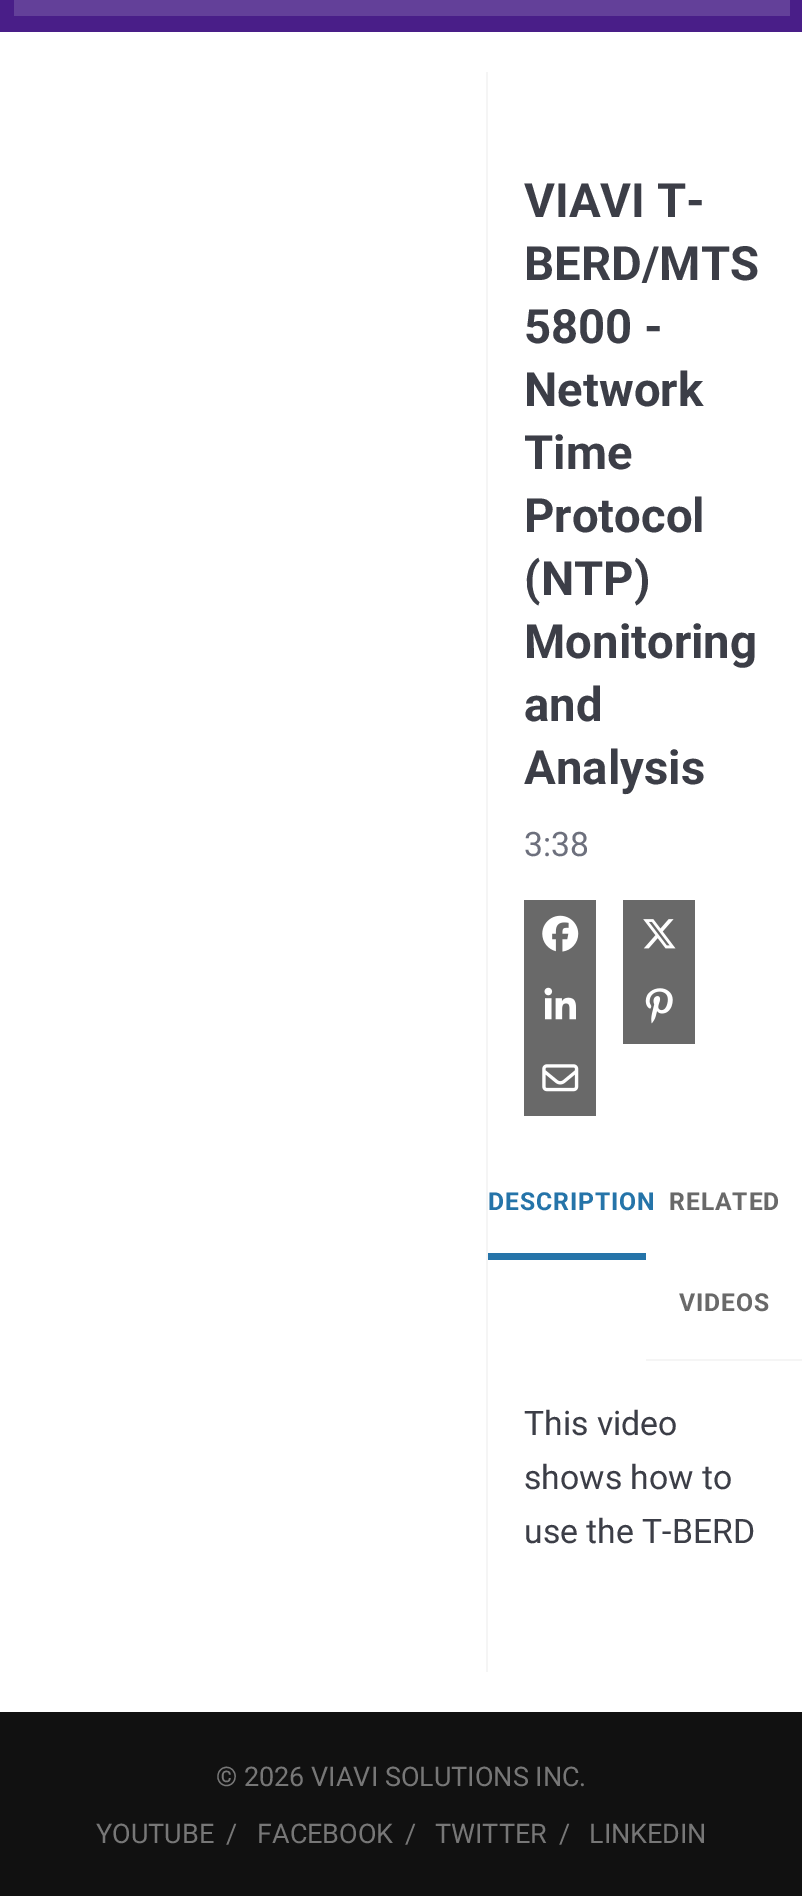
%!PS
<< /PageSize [802 1896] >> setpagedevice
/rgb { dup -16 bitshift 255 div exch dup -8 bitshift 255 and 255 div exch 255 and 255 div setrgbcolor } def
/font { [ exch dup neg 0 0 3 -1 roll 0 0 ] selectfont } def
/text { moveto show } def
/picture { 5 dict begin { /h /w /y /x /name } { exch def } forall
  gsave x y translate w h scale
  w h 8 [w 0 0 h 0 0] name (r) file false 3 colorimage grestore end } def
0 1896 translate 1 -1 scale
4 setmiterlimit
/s1 { /Roboto-Bold 47.25 font 16#3C3E47 rgb } def
/s2 { /Roboto-Regular 33.75 font 16#6D707D rgb } def
/s3 { /Roboto-Regular 33.75 font 16#3C3E47 rgb } def
/s4 { /Roboto-Regular 27 font 16#777777 rgb } def
16#FFFFFF rgb
0 0 802 1896 rectfill
16#491E88 rgb
0 0 802 32 rectfill
16#634099 rgb
14 0 776 16 rectfill
16#F5F5F5 rgb
486 72 2 1600 rectfill
s1
(VIAVI T-) 524 217 text
(BERD/MTS) 524 280 text
(5800 -) 524 343 text
(Network) 524 406 text
(Time) 524 469 text
(Protocol) 524 532 text
(\(NTP\)) 524 595 text
(Monitoring) 524 658 text
(and) 524 721 text
(Analysis) 524 784 text
s2
(3:38) 524 856 text
16#696969 rgb
524 900 72 216 rectfill
(pic1.raw) 542 915 37 37 picture
623 900 72 144 rectfill
(pic2.raw) 643 919 33 30 picture
(pic3.raw) 544 987 32 33 picture
(pic4.raw) 645 988 28 36 picture
(pic5.raw) 542 1064 37 28 picture
16#2574A9 rgb
488 1253 158 7 rectfill
/Roboto-Bold 24.75 font
488 1210 moveto 0.9 0 (DESCRIPTION) ashow
16#F5F5F5 rgb
646 1359 156 2 rectfill
16#696969 rgb
669 1210 moveto 0.9 0 (RELATED) ashow
679 1311 moveto 0.9 0 (VIDEOS) ashow
s3
(This video) 524 1435 text
(shows how to) 524 1489 text
(use the T-BERD) 524 1543 text
16#111111 rgb
0 1712 802 184 rectfill
s4
(© 2026 VIAVI SOLUTIONS INC.) 216 1786 text
(YOUTUBE) 96 1843 text
(/) 226 1843 text
(FACEBOOK) 257 1843 text
(/) 405 1843 text
(TWITTER) 435 1843 text
(/) 559 1843 text
(LINKEDIN) 589 1843 text
showpage
